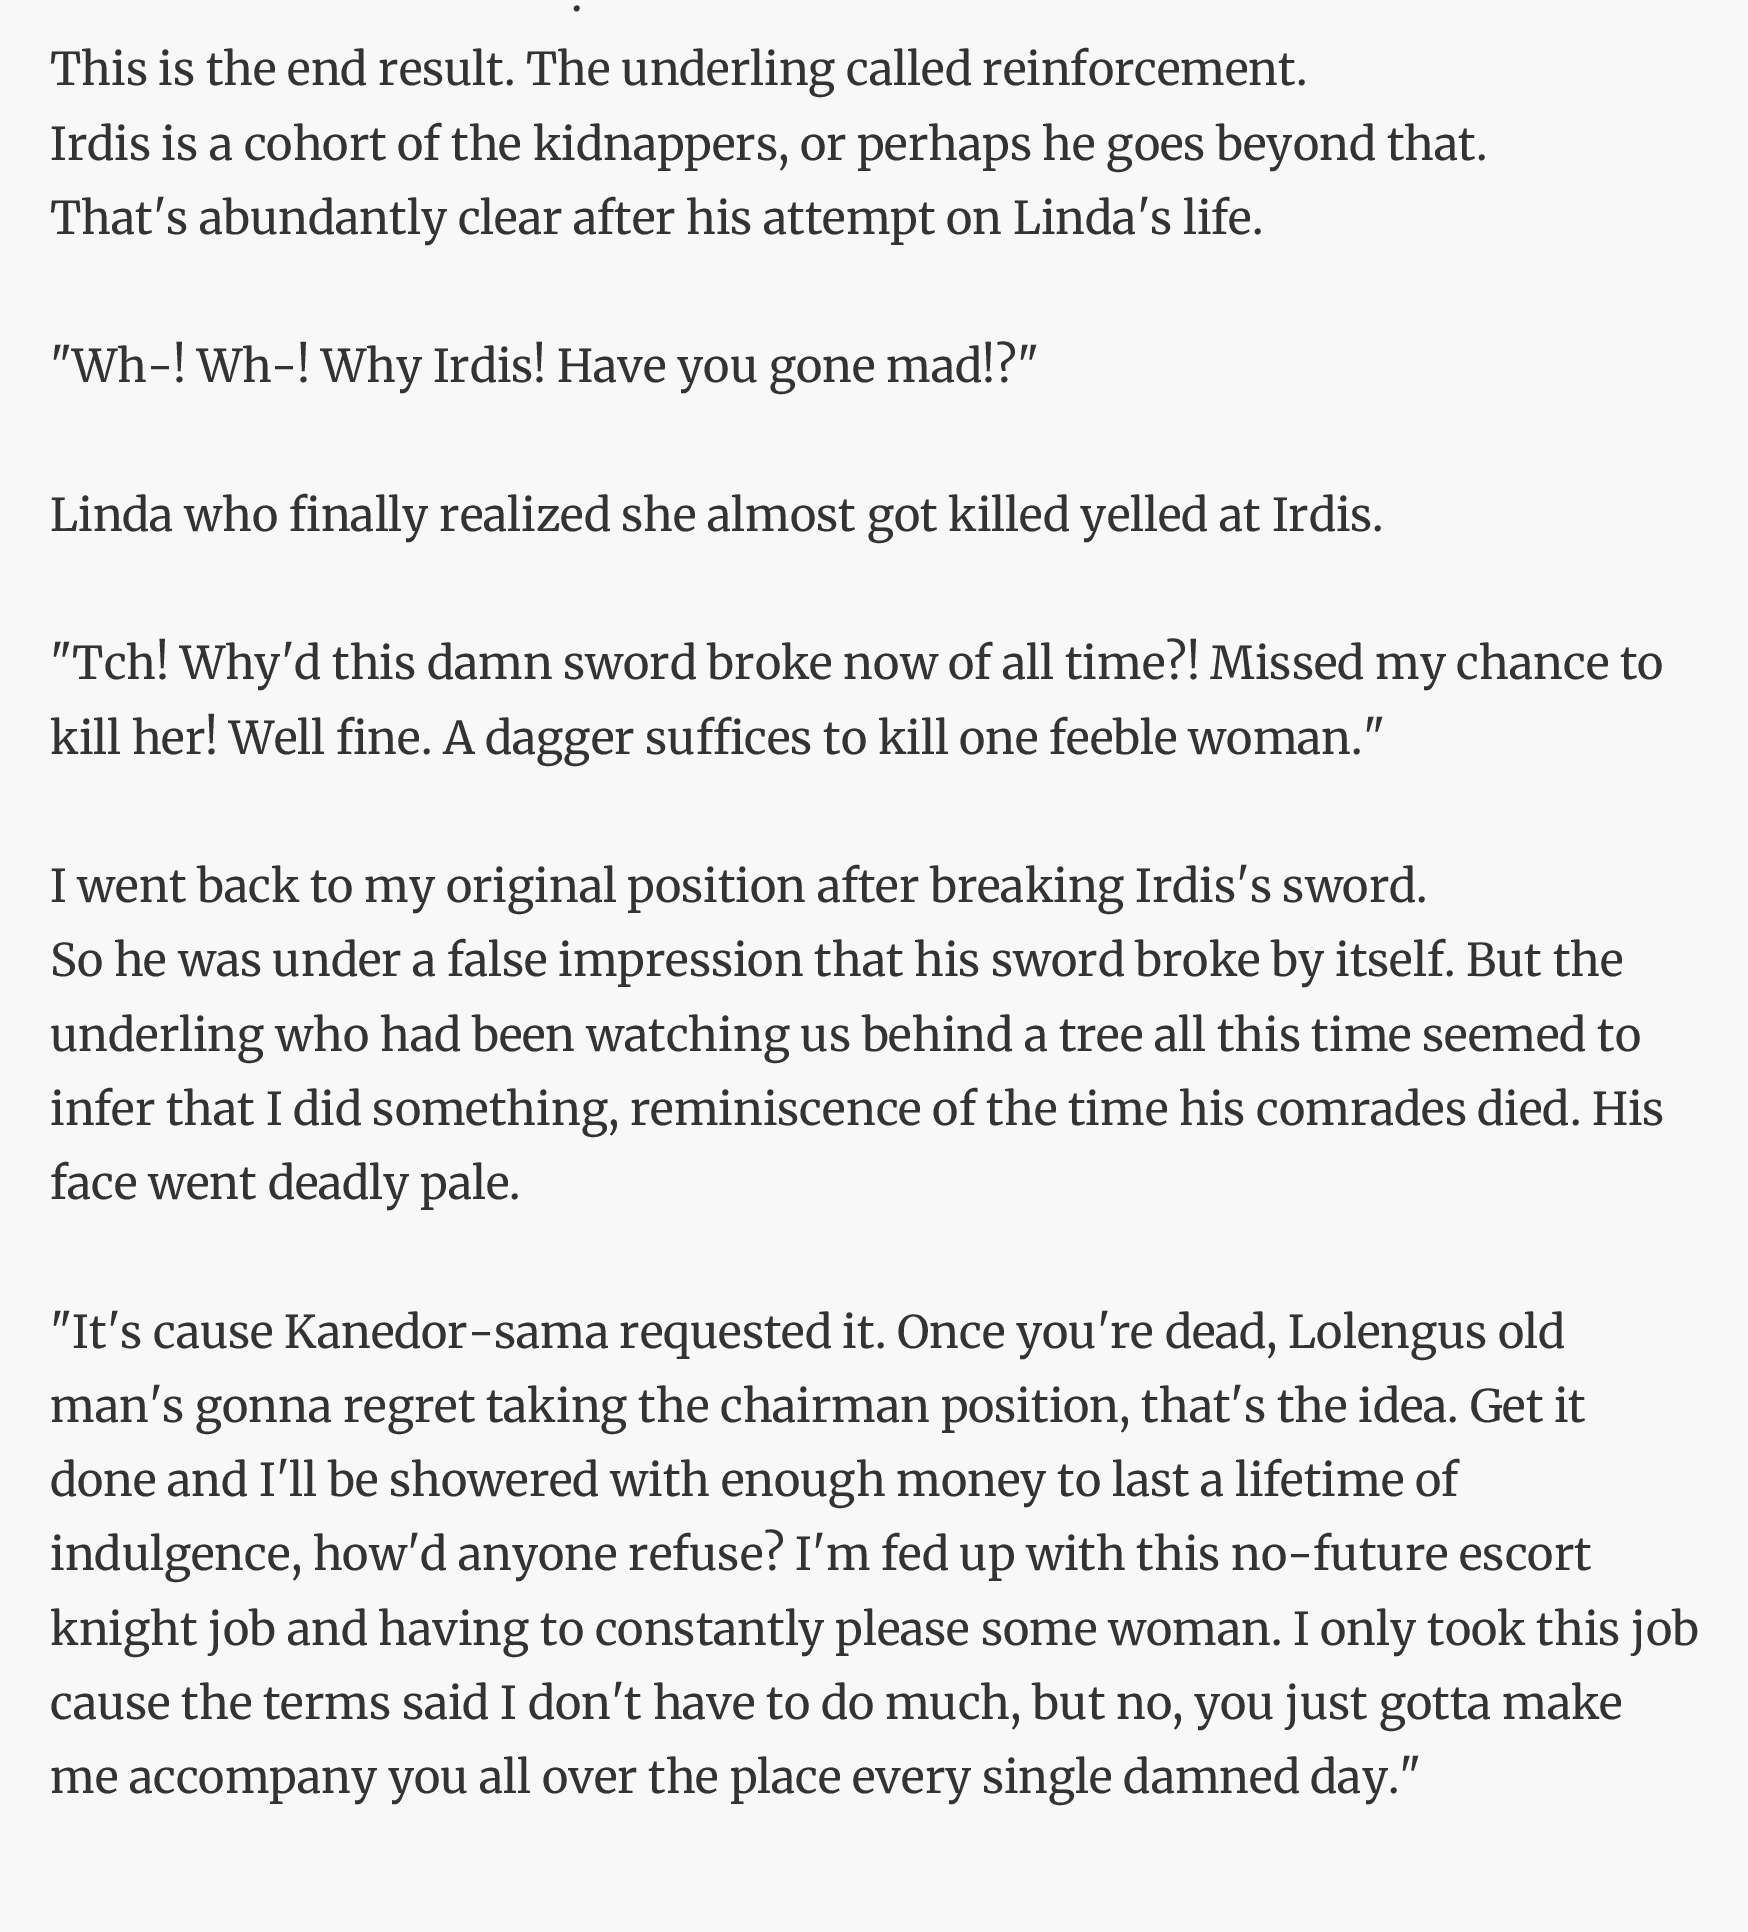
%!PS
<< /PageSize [1748 1932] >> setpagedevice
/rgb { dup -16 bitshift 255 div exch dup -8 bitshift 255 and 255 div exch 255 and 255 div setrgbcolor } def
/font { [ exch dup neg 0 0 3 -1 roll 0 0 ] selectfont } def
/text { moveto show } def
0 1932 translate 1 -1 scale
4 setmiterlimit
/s1 { /Merriweather-Regular 45 font 16#333333 rgb } def
16#F8F8F8 rgb
0 0 1748 1932 rectfill
s1
(.) 571 11 text
(This is the end result. The underling called reinforcement.) 50 85 text
(Irdis is a cohort of the kidnappers, or perhaps he goes beyond that.) 50 160 text
(That's abundantly clear after his attempt on Linda's life.) 50 234 text
("Wh-! Wh-! Why Irdis! Have you gone mad!?") 50 382 text
(Linda who finally realized she almost got killed yelled at Irdis.) 50 531 text
("Tch! Why'd this damn sword broke now of all time?! Missed my chance to) 50 679 text
(kill her! Well fine. A dagger suffices to kill one feeble woman.") 50 754 text
(I went back to my original position after breaking Irdis's sword.) 50 902 text
(So he was under a false impression that his sword broke by itself. But the) 50 976 text
(underling who had been watching us behind a tree all this time seemed to) 50 1051 text
(infer that I did something, reminiscence of the time his comrades died. His) 50 1125 text
(face went deadly pale.) 50 1199 text
("It's cause Kanedor-sama requested it. Once you're dead, Lolengus old) 50 1348 text
(man's gonna regret taking the chairman position, that's the idea. Get it) 50 1422 text
(done and I'll be showered with enough money to last a lifetime of) 50 1496 text
(indulgence, how'd anyone refuse? I'm fed up with this no-future escort) 50 1570 text
(knight job and having to constantly please some woman. I only took this job) 50 1645 text
(cause the terms said I don't have to do much, but no, you just gotta make) 50 1719 text
(me accompany you all over the place every single damned day.") 50 1793 text
showpage
